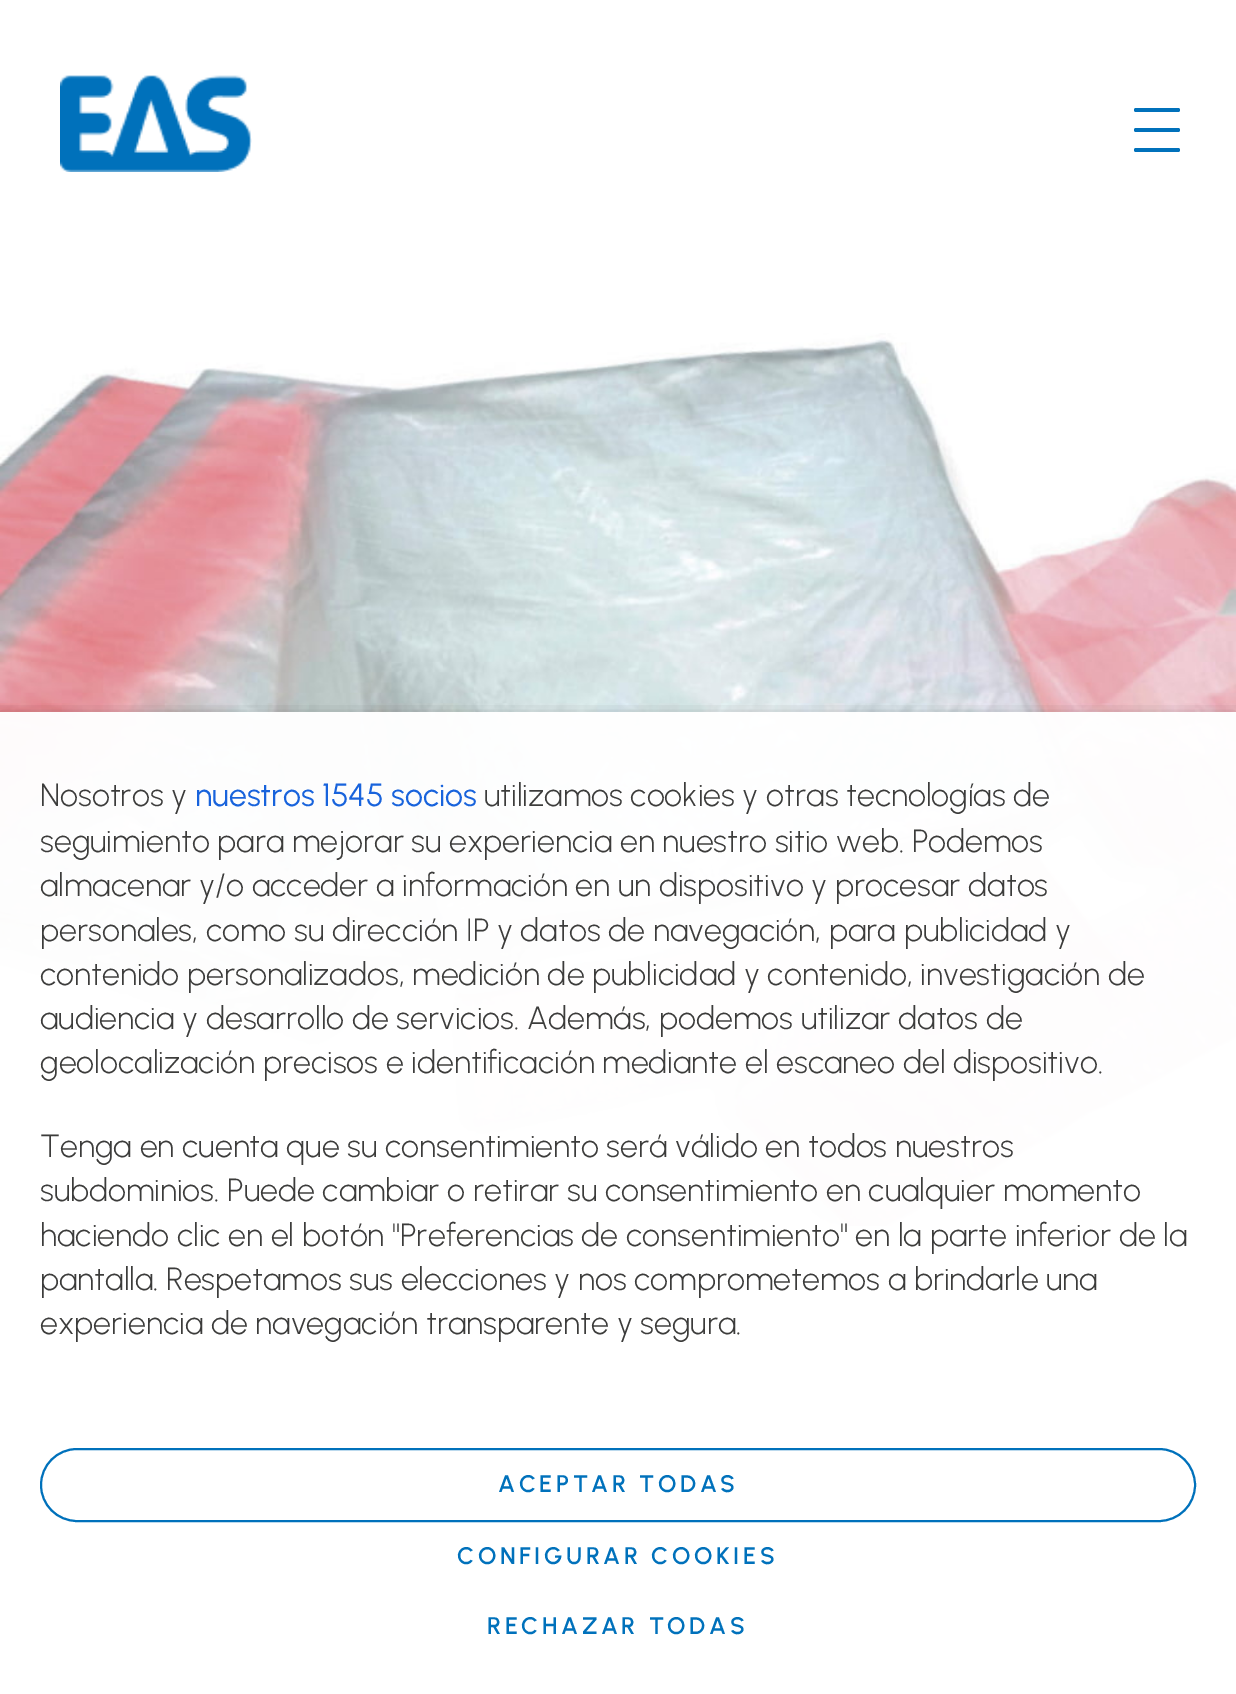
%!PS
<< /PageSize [1236 1694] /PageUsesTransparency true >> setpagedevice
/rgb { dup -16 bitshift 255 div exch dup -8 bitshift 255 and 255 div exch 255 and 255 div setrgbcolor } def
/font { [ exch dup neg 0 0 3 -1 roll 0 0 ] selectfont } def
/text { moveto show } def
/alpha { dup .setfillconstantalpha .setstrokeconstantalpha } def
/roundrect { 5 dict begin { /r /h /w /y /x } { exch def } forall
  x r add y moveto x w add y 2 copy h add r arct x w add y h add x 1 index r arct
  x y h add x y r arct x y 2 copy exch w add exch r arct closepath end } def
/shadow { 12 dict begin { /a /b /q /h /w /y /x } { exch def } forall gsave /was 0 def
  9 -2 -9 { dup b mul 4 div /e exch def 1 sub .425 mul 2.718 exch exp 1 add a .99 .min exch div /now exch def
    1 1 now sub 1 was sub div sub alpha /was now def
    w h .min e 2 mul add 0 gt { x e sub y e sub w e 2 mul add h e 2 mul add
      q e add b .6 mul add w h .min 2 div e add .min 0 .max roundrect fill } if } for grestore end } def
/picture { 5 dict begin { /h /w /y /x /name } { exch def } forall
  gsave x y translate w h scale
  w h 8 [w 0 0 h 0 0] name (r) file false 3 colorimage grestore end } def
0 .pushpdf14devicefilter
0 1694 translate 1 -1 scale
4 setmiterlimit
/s1 { /Urbanist-Light 32 font 16#3C3C3B rgb } def
/s2 { /Urbanist-Regular 32 font 16#1863DC rgb } def
16#FFFFFF rgb
0 0 1236 1694 rectfill
(pic1.raw) 60 75 192 97 picture
16#0071BB rgb
1134 128 46 4 2 roundrect fill
1134 108 46 4 2 roundrect fill
1134 148 46 4 2 roundrect fill
(pic2.raw) 0 333 1236 893 picture
gsave
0 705 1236 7 rectclip
16#000000 rgb
0 722 1236 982 0 10 0.5 shadow
grestore
0.97 alpha
16#FFFFFF rgb
0 712 1236 514 rectfill
1 alpha
s1
(Nosotros y) 40 806 text
s2
(nuestros 1545 socios) 195 806 text
s1
(utilizamos cookies y otras tecnologías de) 484 806 text
(seguimiento para mejorar su experiencia en nuestro sitio web. Podemos) 40 852 text
(almacenar y/o acceder a información en un dispositivo y procesar datos) 40 896 text
(personales, como su dirección IP y datos de navegación, para publicidad y) 40 941 text
(contenido personalizados, medición de publicidad y contenido, investigación de) 40 985 text
(audiencia y desarrollo de servicios. Además, podemos utilizar datos de) 40 1029 text
(geolocalización precisos e identificación mediante el escaneo del dispositivo.) 40 1073 text
(Tenga en cuenta que su consentimiento será válido en todos nuestros) 40 1157 text
(subdominios. Puede cambiar o retirar su consentimiento en cualquier momento) 40 1201 text
(haciendo clic en el botón "Preferencias de consentimiento" en la parte inferior de la) 40 1246 text
(pantalla. Respetamos sus elecciones y nos comprometemos a brindarle una) 40 1290 text
(experiencia de navegación transparente y segura.) 40 1334 text
16#0071BB rgb
2 setlinewidth
41 1449 1154 72 36 roundrect stroke
/Urbanist-SemiBold 24 font
498 1492 moveto 3.6 0 (ACEPTAR TODAS) ashow
457 1564 moveto 3.6 0 (CONFIGURAR COOKIES) ashow
487 1634 moveto 3.6 0 (RECHAZAR TODAS) ashow
.poppdf14devicefilter showpage
